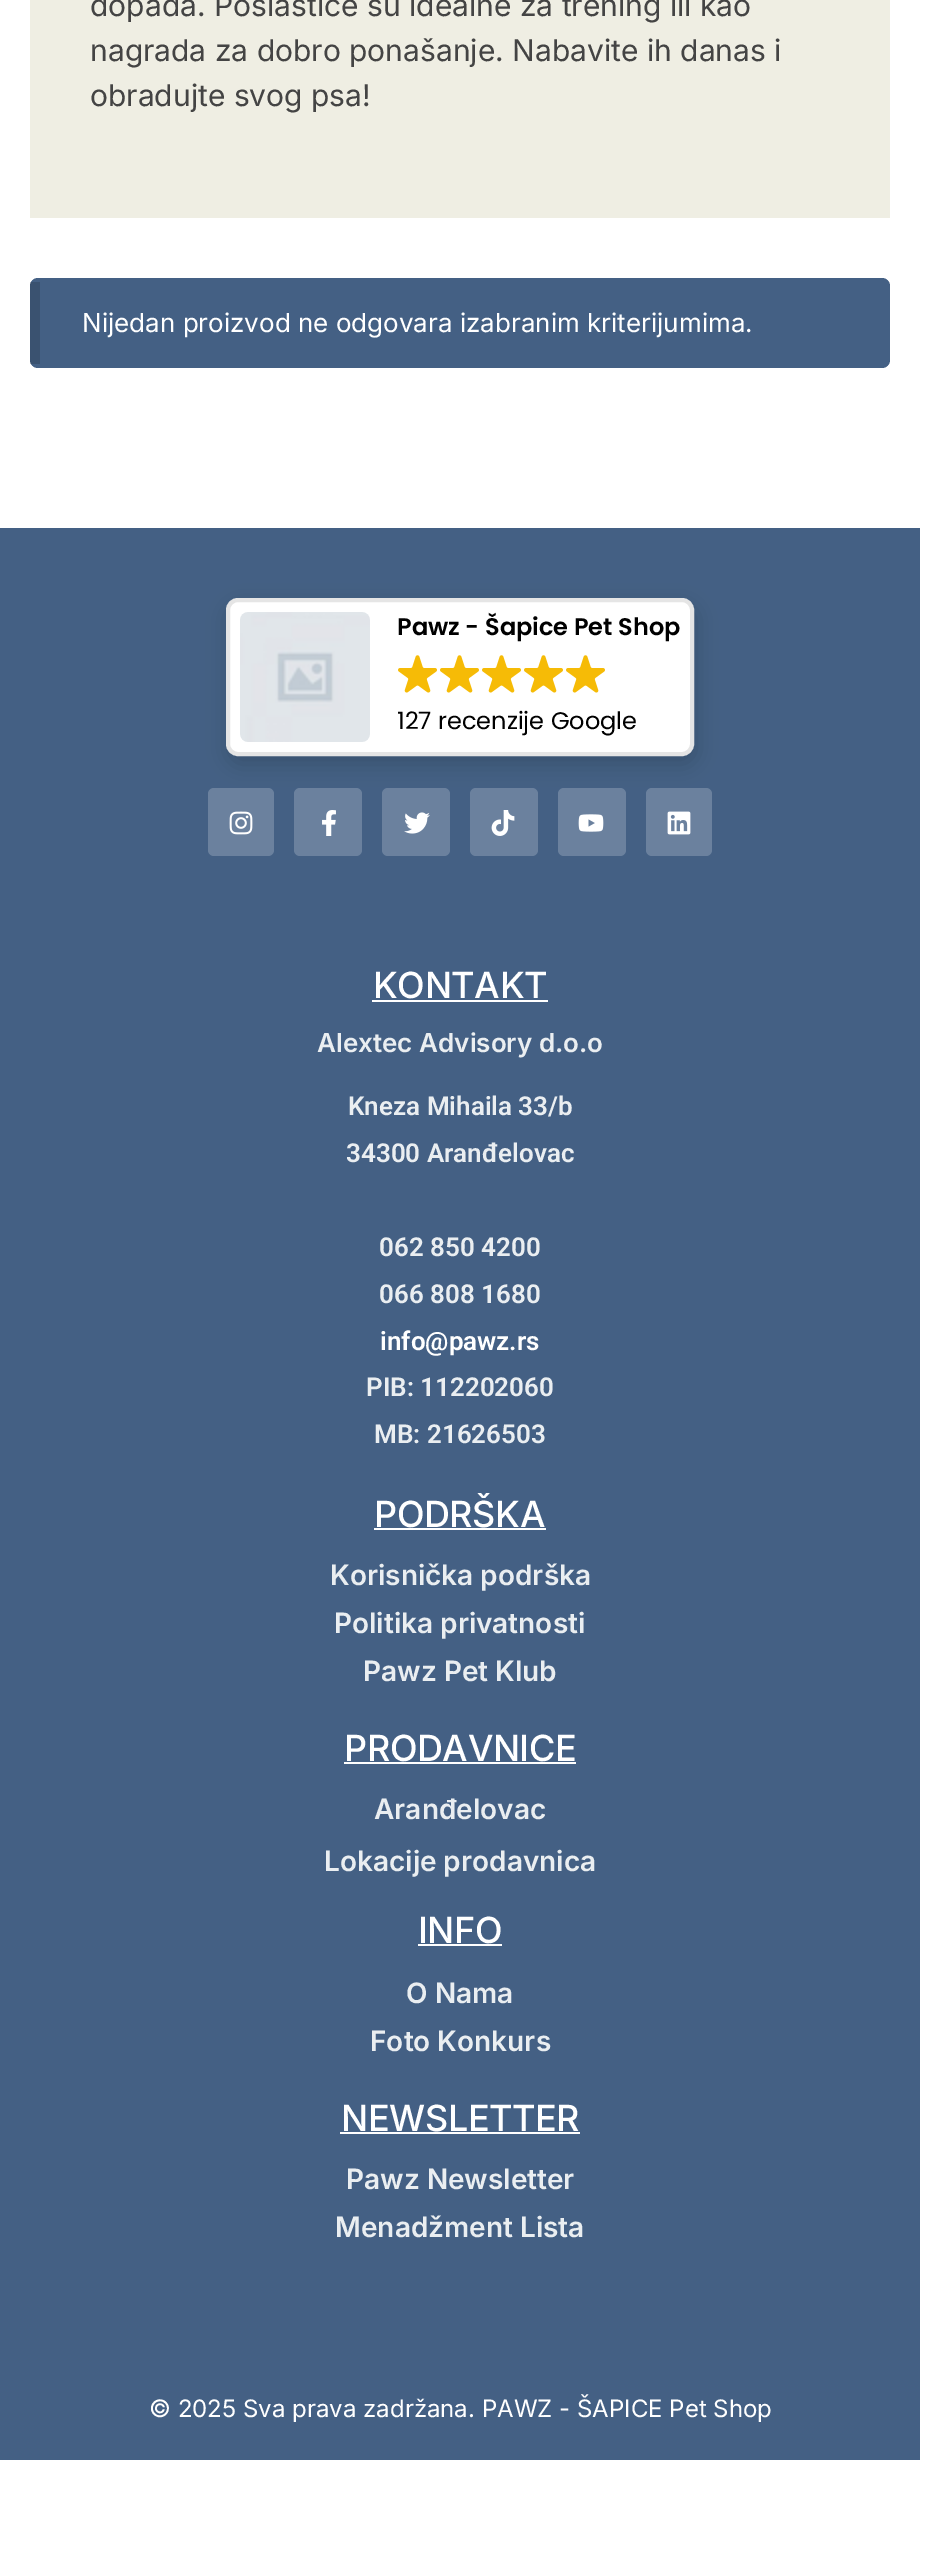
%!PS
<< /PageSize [949 2574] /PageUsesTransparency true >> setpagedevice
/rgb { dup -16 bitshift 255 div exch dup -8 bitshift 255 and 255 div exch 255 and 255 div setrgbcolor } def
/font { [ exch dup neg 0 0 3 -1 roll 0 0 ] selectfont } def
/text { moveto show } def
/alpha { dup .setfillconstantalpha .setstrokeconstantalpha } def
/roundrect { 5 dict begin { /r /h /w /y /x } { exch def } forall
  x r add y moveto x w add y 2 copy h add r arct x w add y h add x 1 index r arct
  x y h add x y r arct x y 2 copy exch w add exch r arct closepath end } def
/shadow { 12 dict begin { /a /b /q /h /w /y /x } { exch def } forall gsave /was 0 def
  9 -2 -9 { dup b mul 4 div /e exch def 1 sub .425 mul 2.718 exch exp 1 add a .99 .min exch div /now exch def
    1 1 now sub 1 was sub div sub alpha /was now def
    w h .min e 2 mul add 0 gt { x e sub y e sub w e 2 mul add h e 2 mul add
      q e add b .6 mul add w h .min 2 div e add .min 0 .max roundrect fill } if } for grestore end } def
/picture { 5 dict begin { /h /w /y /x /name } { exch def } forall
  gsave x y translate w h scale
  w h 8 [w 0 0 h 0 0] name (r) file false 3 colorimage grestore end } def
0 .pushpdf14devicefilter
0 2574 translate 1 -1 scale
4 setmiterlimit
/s1 { /Inter-Regular 30 font 16#444444 rgb } def
/s2 { /Inter-Regular 26 font 16#FFFFFF rgb } def
/s3 { /Poppins-SemiBold 24 font 16#000000 rgb } def
/s4 { /Poppins-Regular 24 font 16#000000 rgb } def
/s5 { /Inter-SemiBold 26 font 16#EAEEF1 rgb } def
/s6 { /Roboto-SemiBold 26 font 16#EAEEF1 rgb } def
/s7 { /Roboto-SemiBold 26 font 16#FFFFFF rgb } def
/s8 { /Inter-SemiBold 28 font 16#EAEEF1 rgb } def
/s9 { /Inter-Regular 24 font 16#FFFFFF rgb } def
16#FFFFFF rgb
0 0 949 2574 rectfill
16#EFEEE3 rgb
30 0 860 218 rectfill
s1
(dopada. Poslastice su idealne za trening ili kao) 90 16 text
(nagrada za dobro ponašanje. Nabavite ih danas i) 90 61 text
(obradujte svog psa!) 90 106 text
16#446084 rgb
30 278 860 90 8 roundrect fill
0.15 alpha
16#000000 rgb
30 282 10 82 rectfill
1 alpha
s2
(Nijedan proizvod ne odgovara izabranim kriterijumima.) 82 332 text
16#446084 rgb
0 528 920 1932 rectfill
16#000000 rgb
228 606 468 158 12 10 0.15 shadow
16#FFFFFF rgb
228 600 464 154 10 roundrect gsave fill grestore
16#E5E5E5 rgb
4 setlinewidth
stroke
(pic1.raw) 240 612 130 130 picture
s3
(Pawz - Šapice Pet Shop) 397 635 text
(pic2.raw) 398 655 39 38 picture
(pic2.raw) 440 655 39 38 picture
(pic2.raw) 482 655 39 38 picture
(pic2.raw) 524 655 39 38 picture
(pic2.raw) 566 655 39 38 picture
s4
(127 recenzije Google) 397 729 text
16#6B819E rgb
208 788 66 68 6 roundrect fill
(pic3.raw) 229 811 24 24 picture
294 788 68 68 6 roundrect fill
(pic4.raw) 322 810 14 26 picture
382 788 68 68 6 roundrect fill
(pic5.raw) 404 812 26 22 picture
470 788 68 68 6 roundrect fill
(pic6.raw) 491 810 24 26 picture
558 788 68 68 6 roundrect fill
(pic7.raw) 578 814 26 18 picture
646 788 66 68 6 roundrect fill
(pic8.raw) 667 811 24 24 picture
/Inter-Medium 36 font
16#FFFFFF rgb
373 998 moveto -0.4 0 (KONTAKT) ashow
372 1000 176 2 rectfill
s5
(Alextec Advisory d.o.o) 317 1052 text
s6
(Kneza Mihaila 33/b) 348 1115 text
(34300 Aranđelovac) 346 1162 text
(062 850 4200) 379 1256 text
(066 808 1680) 379 1303 text
s7
(info@pawz.rs) 380 1350 text
s6
(PIB: 112202060) 366 1396 text
(MB: 21626503) 374 1443 text
/Inter-Medium 36 font
16#FFFFFF rgb
374 1527 moveto -0.4 0 (PODRŠKA) ashow
374 1528 172 2 rectfill
s8
(Korisnička podrška) 330 1585 text
(Politika privatnosti) 334 1633 text
(Pawz Pet Klub) 363 1681 text
/Inter-Medium 36 font
16#FFFFFF rgb
344 1761 moveto -0.4 0 (PRODAVNICE) ashow
344 1762 232 2 rectfill
s8
(Aranđelovac) 374 1819 text
(Lokacije prodavnica) 324 1871 text
/Inter-Medium 36 font
16#FFFFFF rgb
418 1943 moveto -0.4 0 (INFO) ashow
418 1944 84 2 rectfill
s8
(O Nama) 406 2003 text
(Foto Konkurs) 370 2051 text
/Inter-Medium 36 font
16#FFFFFF rgb
341 2131 moveto -0.4 0 (NEWSLETTER) ashow
340 2132 240 2 rectfill
s8
(Pawz Newsletter) 346 2189 text
(Menadžment Lista) 335 2237 text
s9
(© 2025 Sva prava zadržana. PAWZ - ŠAPICE Pet Shop) 149 2417 text
.poppdf14devicefilter showpage
